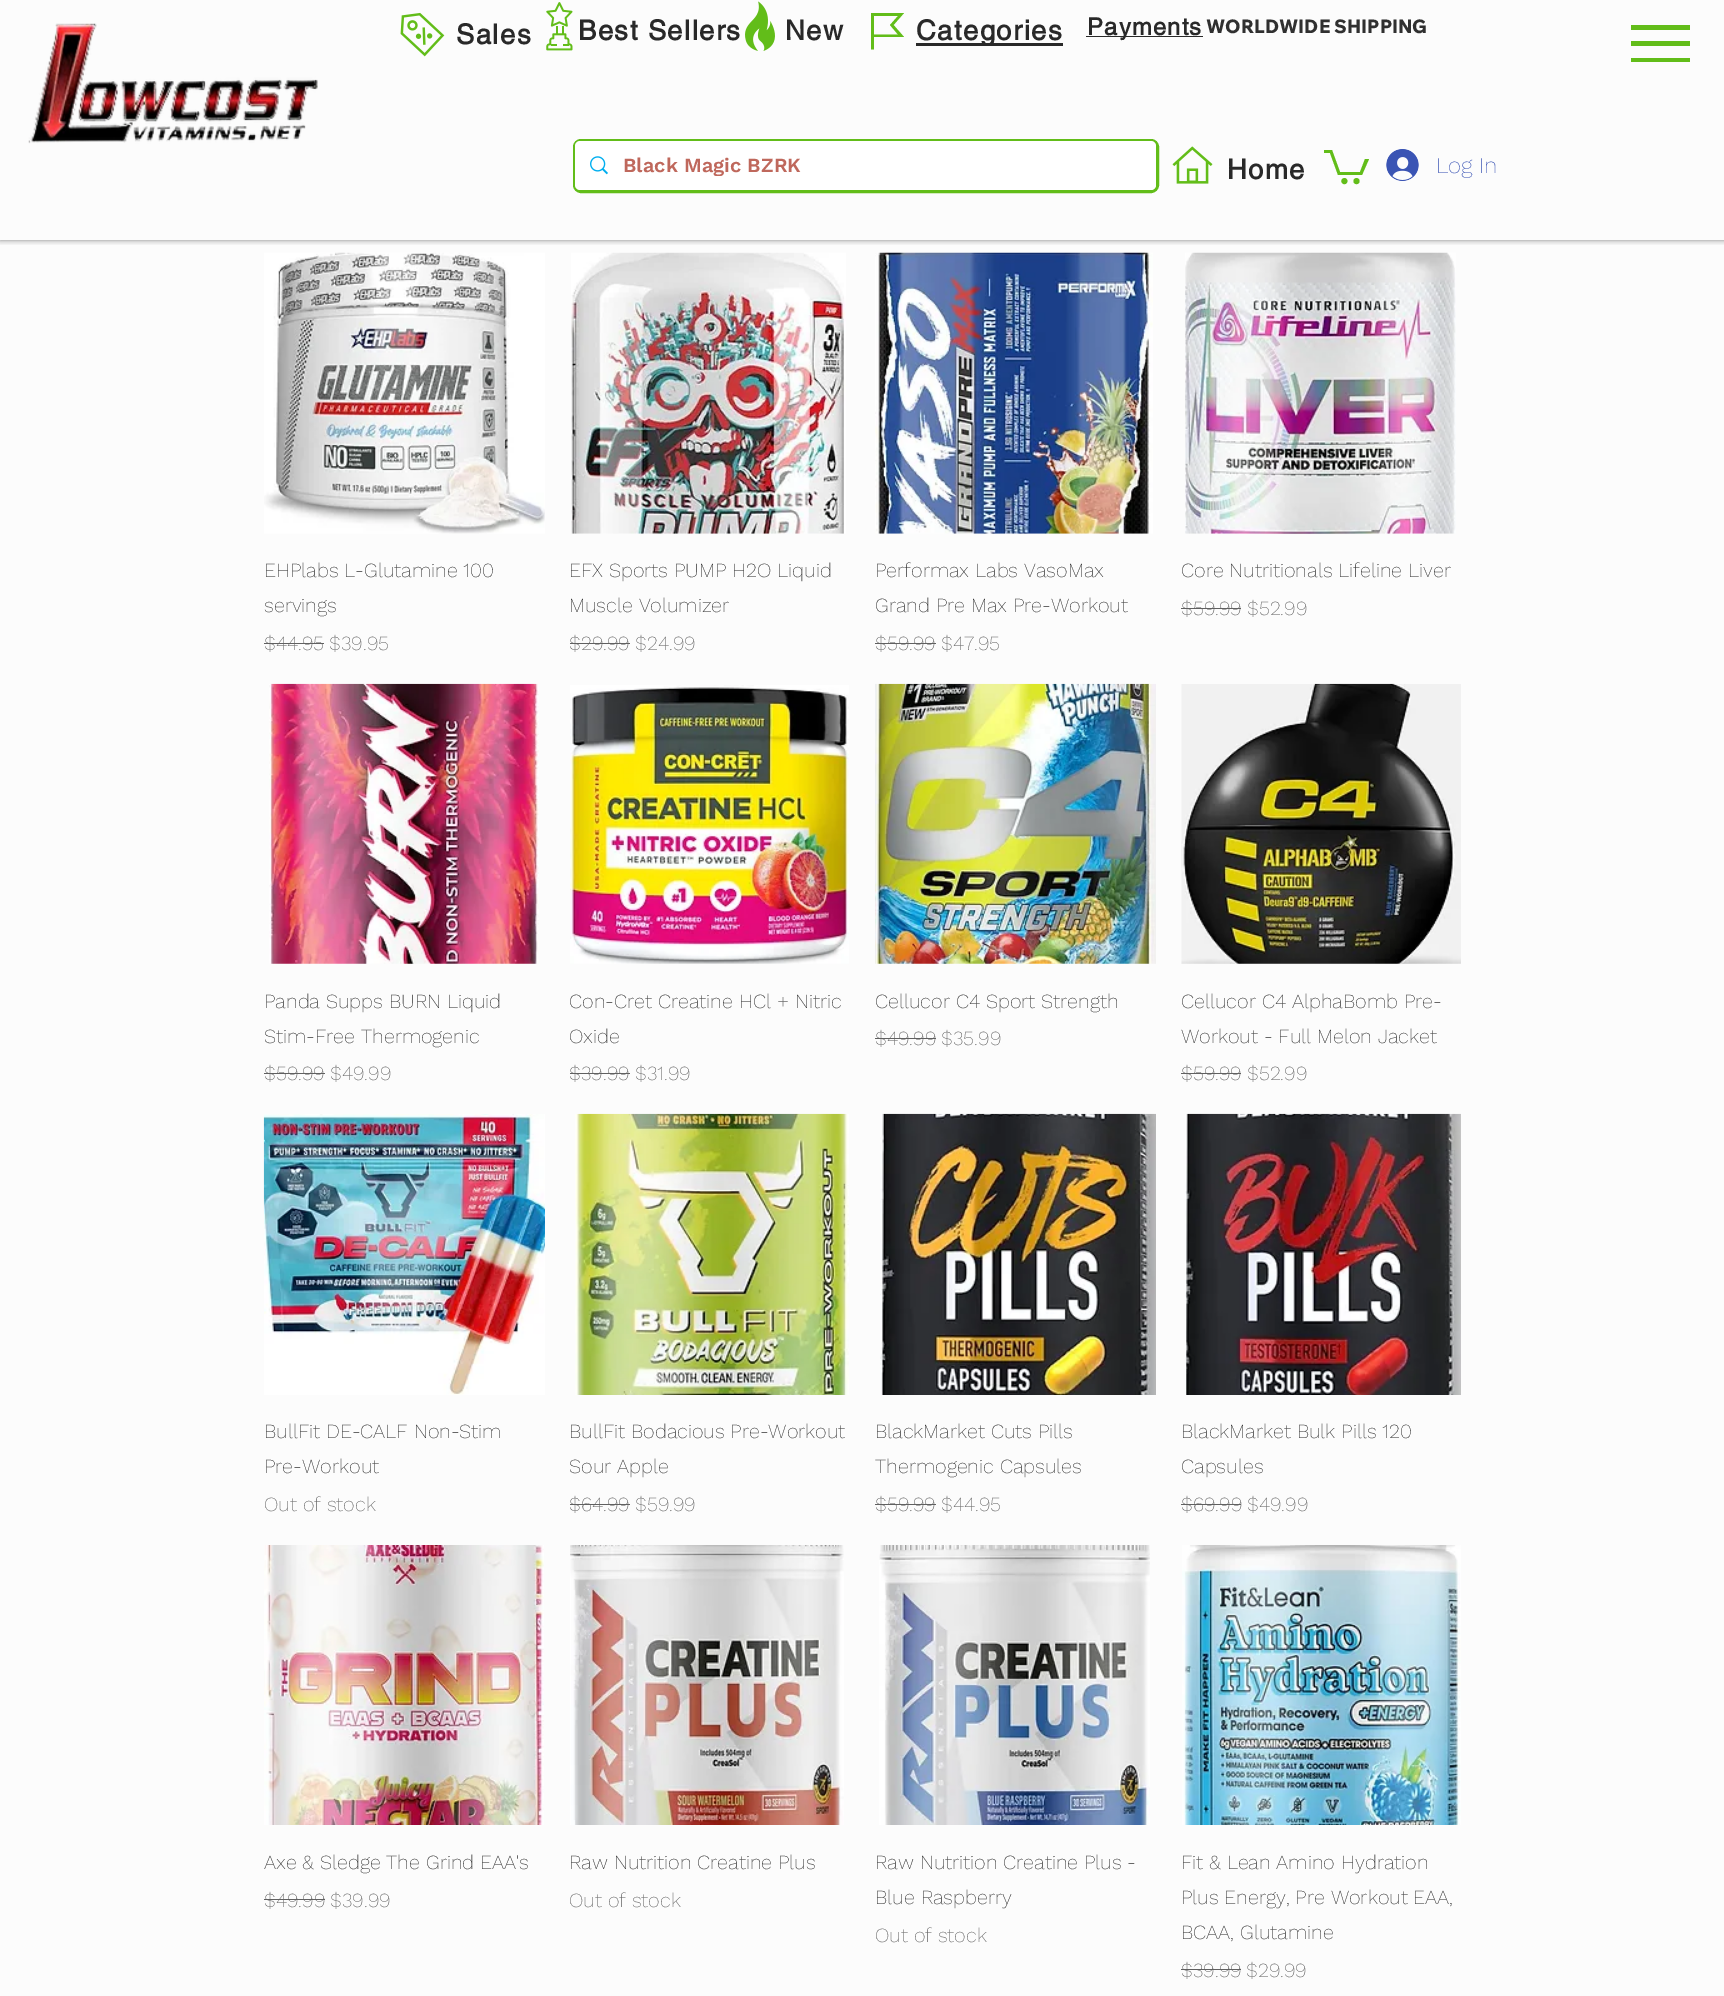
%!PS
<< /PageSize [1724 1996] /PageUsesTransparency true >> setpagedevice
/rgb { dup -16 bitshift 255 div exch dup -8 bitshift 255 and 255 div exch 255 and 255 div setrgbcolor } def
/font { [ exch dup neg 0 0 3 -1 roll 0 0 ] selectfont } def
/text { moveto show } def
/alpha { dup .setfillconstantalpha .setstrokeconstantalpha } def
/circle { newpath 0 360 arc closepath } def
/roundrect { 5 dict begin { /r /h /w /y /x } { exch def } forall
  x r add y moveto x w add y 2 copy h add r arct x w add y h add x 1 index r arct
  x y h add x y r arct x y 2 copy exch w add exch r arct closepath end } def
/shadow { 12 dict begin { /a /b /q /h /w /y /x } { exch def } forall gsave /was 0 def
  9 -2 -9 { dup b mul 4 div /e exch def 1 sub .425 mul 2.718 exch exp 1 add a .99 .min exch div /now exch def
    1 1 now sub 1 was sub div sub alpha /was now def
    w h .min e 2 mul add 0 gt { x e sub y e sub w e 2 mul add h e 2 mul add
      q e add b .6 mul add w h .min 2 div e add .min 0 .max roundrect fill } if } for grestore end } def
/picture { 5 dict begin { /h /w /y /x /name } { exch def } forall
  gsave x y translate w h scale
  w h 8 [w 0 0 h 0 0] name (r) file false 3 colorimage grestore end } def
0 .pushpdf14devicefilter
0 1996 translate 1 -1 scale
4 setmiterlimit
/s1 { /WixMadeforText-ExtraBold 18.75 font 16#303030 rgb } def
/s2 { /WorkSans-SemiBold 20 font 16#BF685C rgb } def
/s3 { /WorkSans-ExtraLight 22.5 font 16#3A54B4 rgb } def
/s4 { /WorkSans-ExtraLight 20 font 16#303030 rgb } def
/s5 { /WorkSans-ExtraLight 20 font 16#606060 rgb } def
16#FCFCFC rgb
0 0 1724 1996 rectfill
gsave
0 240 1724 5 rectclip
16#000000 rgb
0 0 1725 240 0 3 0.5 shadow
grestore
(pic1.raw) 28 23 290 121 picture
(pic2.raw) 400 12 45 45 picture
/helvetica-Bold 27.5 font
16#292929 rgb
456 44 moveto 1.4 0 (Sales) ashow
(pic3.raw) 546 2 27 49 picture
578 40 moveto 1.4 0 (Best Sellers) ashow
(pic4.raw) 745 1 30 50 picture
785 40 moveto 1.4 0 (New) ashow
16#62BD19 rgb
893.5 25 moveto 904 13 lineto 871 13 lineto 871 49.5 lineto 874 49.5 lineto 874 37 lineto 904 37 lineto closepath 874 16 moveto 898 16 lineto 890 25 lineto 898 34.5 lineto 874 34.5 lineto closepath fill
16#292929 rgb
916 43 147 3 rectfill
916 40 moveto 1.4 0 (Categories) ashow
1086 36 117 1 rectfill
/helvetica-Bold 23.75 font
1087 35 moveto 1.25 0 (Payments) ashow
s1
(WORLDWIDE SHIPPING) 1206 33 text
16#62BD19 rgb
3 setlinewidth
574.5 140.5 583 51 6.5 roundrect stroke
16#FFFFFF rgb
575 141 581 49 5 roundrect fill
(pic5.raw) 590 156 18 19 picture
gsave
623 153 481 23 rectclip
s2
(Black Magic BZRK) 623 172 text
grestore
(pic6.raw) 1172 146 41 38 picture
/helvetica-Bold 27.5 font
16#292929 rgb
1227 179 moveto 1.4 0 (Home) ashow
16#62BD19 rgb
1369 159 moveto 1362 175 lineto 1338 175 lineto 1330 153 lineto 1324 153 lineto 1324 150 lineto 1332 150 lineto 1340 172 lineto 1360 172 lineto 1365 159 lineto fill
1356.5 181.1 3 circle fill
1344.4 181.1 3 circle fill
(pic7.raw) 1386 149 33 32 picture
s3
(Log In) 1436 173 text
16#62BD19 rgb
1631 58 59 4 rectfill
1631 25 59 5 rectfill
1631 41 59 5 rectfill
(pic8.raw) 264 252 281 282 picture
s4
(EHPlabs L-Glutamine 100) 264 577 text
(servings) 264 612 text
s5
($44.95) 264 650 text
264 643 60 1 rectfill
($39.95) 329 650 text
(pic9.raw) 571 252 275 282 picture
s4
(EFX Sports PUMP H2O Liquid) 569 577 text
(Muscle Volumizer) 569 612 text
s5
($29.99) 569 650 text
570 643 60 1 rectfill
($24.99) 635 650 text
(pic10.raw) 875 252 278 282 picture
s4
(Performax Labs VasoMax) 875 577 text
(Grand Pre Max Pre-Workout) 875 612 text
s5
($59.99) 875 650 text
875 643 61 1 rectfill
($47.95) 941 650 text
(pic11.raw) 1185 252 271 282 picture
s4
(Core Nutritionals Lifeline Liver) 1181 577 text
s5
($59.99) 1181 615 text
1181 608 60 1 rectfill
($52.99) 1247 615 text
(pic12.raw) 269 683 270 281 picture
s4
(Panda Supps BURN Liquid) 264 1008 text
(Stim-Free Thermogenic) 264 1043 text
s5
($59.99) 264 1080 text
264 1073 61 1 rectfill
($49.99) 330 1080 text
(pic13.raw) 570 685 279 279 picture
s4
(Con-Cret Creatine HCl + Nitric) 569 1008 text
(Oxide) 569 1043 text
s5
($39.99) 569 1080 text
570 1073 60 1 rectfill
($31.99) 635 1080 text
(pic14.raw) 875 683 281 281 picture
s4
(Cellucor C4 Sport Strength) 875 1008 text
s5
($49.99) 875 1045 text
875 1038 61 1 rectfill
($35.99) 941 1045 text
(pic15.raw) 1181 683 280 281 picture
s4
(Cellucor C4 AlphaBomb Pre-) 1181 1008 text
(Workout - Full Melon Jacket) 1181 1043 text
s5
($59.99) 1181 1080 text
1181 1073 60 1 rectfill
($52.99) 1247 1080 text
(pic16.raw) 263 1114 282 281 picture
s4
(BullFit DE-CALF Non-Stim) 264 1438 text
(Pre-Workout) 264 1473 text
s5
(Out of stock) 264 1511 text
(pic17.raw) 575 1113 274 282 picture
s4
(BullFit Bodacious Pre-Workout) 569 1438 text
(Sour Apple) 569 1473 text
s5
($64.99) 569 1511 text
570 1504 60 1 rectfill
($59.99) 635 1511 text
(pic18.raw) 880 1113 276 282 picture
s4
(BlackMarket Cuts Pills) 875 1438 text
(Thermogenic Capsules) 875 1473 text
s5
($59.99) 875 1511 text
875 1504 61 1 rectfill
($44.95) 941 1511 text
(pic19.raw) 1185 1113 276 282 picture
s4
(BlackMarket Bulk Pills 120) 1181 1438 text
(Capsules) 1181 1473 text
s5
($69.99) 1181 1511 text
1181 1504 60 1 rectfill
($49.99) 1247 1511 text
(pic20.raw) 264 1545 280 280 picture
s4
(Axe & Sledge The Grind EAA's) 264 1869 text
s5
($49.99) 264 1907 text
264 1899 61 1 rectfill
($39.99) 330 1907 text
(pic21.raw) 570 1545 274 280 picture
s4
(Raw Nutrition Creatine Plus) 569 1869 text
s5
(Out of stock) 569 1907 text
(pic22.raw) 879 1545 271 280 picture
s4
(Raw Nutrition Creatine Plus -) 875 1869 text
(Blue Raspberry) 875 1904 text
s5
(Out of stock) 875 1942 text
(pic23.raw) 1182 1545 279 280 picture
s4
(Fit & Lean Amino Hydration) 1181 1869 text
(Plus Energy, Pre Workout EAA,) 1181 1904 text
(BCAA, Glutamine) 1181 1939 text
s5
($39.99) 1181 1977 text
1181 1969 60 1 rectfill
($29.99) 1246 1977 text
.poppdf14devicefilter showpage
